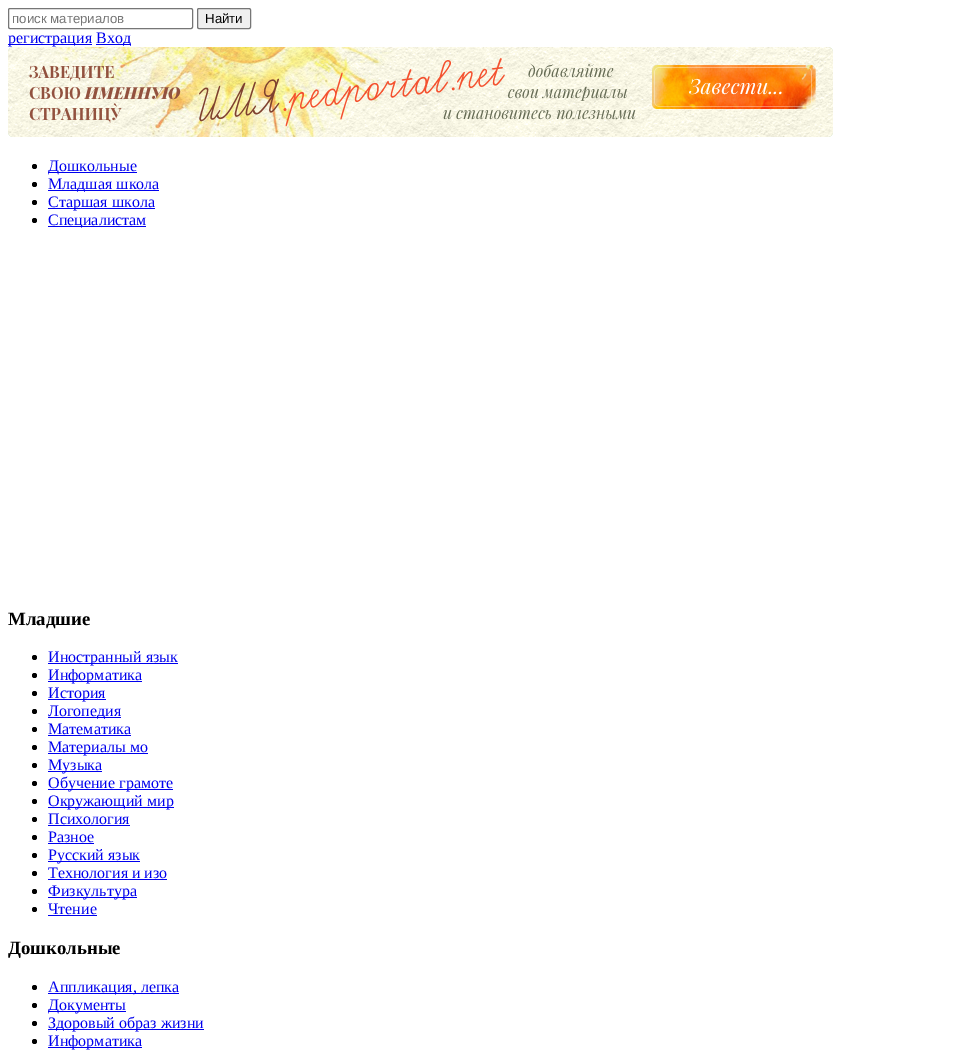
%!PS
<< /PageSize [959 1056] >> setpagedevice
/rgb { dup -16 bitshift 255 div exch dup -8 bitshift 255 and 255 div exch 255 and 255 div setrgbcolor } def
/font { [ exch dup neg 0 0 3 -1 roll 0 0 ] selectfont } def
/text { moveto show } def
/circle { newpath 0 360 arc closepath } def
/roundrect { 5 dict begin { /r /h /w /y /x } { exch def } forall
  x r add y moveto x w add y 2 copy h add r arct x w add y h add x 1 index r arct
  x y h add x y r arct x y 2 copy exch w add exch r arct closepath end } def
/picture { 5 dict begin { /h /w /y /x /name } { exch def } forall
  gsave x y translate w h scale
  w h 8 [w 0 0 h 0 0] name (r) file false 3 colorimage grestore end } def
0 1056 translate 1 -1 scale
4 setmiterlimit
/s1 { /LiberationSans-Regular 13.25 font 16#757575 rgb } def
/s2 { /LiberationSans-Regular 13.25 font 16#000000 rgb } def
/s3 { /LiberationSerif-Regular 16 font 16#0000EE rgb } def
/s4 { /LiberationSerif-Bold 18.75 font 16#000000 rgb } def
16#FFFFFF rgb
0 0 959 1056 rectfill
16#767676 rgb
8.5 8.5 184 20 1.5 roundrect stroke
s1
(поиск материалов) 12 23 text
16#EFEFEF rgb
197.5 8.5 53 20 1.5 roundrect gsave fill grestore
16#767676 rgb
stroke
s2
(Найти) 205 23 text
16#0000EE rgb
8 44 84 1 rectfill
s3
(регистрация) 8 43 text
96 44 35 1 rectfill
(Вход) 96 43 text
(pic1.raw) 8 47 825 90 picture
16#000000 rgb
34.5 166.5 2.5 circle fill
16#0000EE rgb
48 172 89 1 rectfill
(Дошкольные) 48 171 text
16#000000 rgb
34.5 184.5 2.5 circle fill
16#0000EE rgb
48 190 111 1 rectfill
(Младшая школа) 48 189 text
16#000000 rgb
34.5 202.5 2.5 circle fill
16#0000EE rgb
48 208 107 1 rectfill
(Старшая школа) 48 207 text
16#000000 rgb
34.5 220.5 2.5 circle fill
16#0000EE rgb
48 226 98 1 rectfill
(Специалистам) 48 225 text
s4
(Младшие) 8 625 text
34.5 657.5 2.5 circle fill
16#0000EE rgb
48 663 130 1 rectfill
s3
(Иностранный язык) 48 662 text
16#000000 rgb
34.5 675.5 2.5 circle fill
16#0000EE rgb
48 681 94 1 rectfill
(Информатика) 48 680 text
16#000000 rgb
34.5 693.5 2.5 circle fill
16#0000EE rgb
48 699 58 1 rectfill
(История) 48 698 text
16#000000 rgb
34.5 711.5 2.5 circle fill
16#0000EE rgb
48 717 73 1 rectfill
(Логопедия) 48 716 text
16#000000 rgb
34.5 729.5 2.5 circle fill
s3
(Математика) 48 734 text
48 735 83 1 rectfill
16#000000 rgb
34.5 747.5 2.5 circle fill
16#0000EE rgb
48 753 100 1 rectfill
(Материалы мо) 48 752 text
16#000000 rgb
34.5 765.5 2.5 circle fill
16#0000EE rgb
48 771 54 1 rectfill
(Музыка) 48 770 text
16#000000 rgb
34.5 783.5 2.5 circle fill
16#0000EE rgb
48 789 125 1 rectfill
(Обучение грамоте) 48 788 text
16#000000 rgb
34.5 801.5 2.5 circle fill
16#0000EE rgb
48 807 126 1 rectfill
(Окружающий мир) 48 806 text
16#000000 rgb
34.5 819.5 2.5 circle fill
s3
(Психология) 48 824 text
48 825 82 1 rectfill
16#000000 rgb
34.5 837.5 2.5 circle fill
s3
(Разное) 48 842 text
48 843 46 1 rectfill
16#000000 rgb
34.5 855.5 2.5 circle fill
16#0000EE rgb
48 861 92 1 rectfill
(Русский язык) 48 860 text
16#000000 rgb
34.5 873.5 2.5 circle fill
s3
(Технология и изо) 48 878 text
48 879 119 1 rectfill
16#000000 rgb
34.5 891.5 2.5 circle fill
16#0000EE rgb
48 897 89 1 rectfill
(Физкультура) 48 896 text
16#000000 rgb
34.5 909.5 2.5 circle fill
s3
(Чтение) 48 914 text
48 915 49 1 rectfill
s4
(Дошкольные) 8 954 text
34.5 987.5 2.5 circle fill
16#0000EE rgb
48 993 131 1 rectfill
s3
(Аппликация, лепка) 48 992 text
16#000000 rgb
34.5 1005.5 2.5 circle fill
16#0000EE rgb
48 1011 78 1 rectfill
(Документы) 48 1010 text
16#000000 rgb
34.5 1023.5 2.5 circle fill
16#0000EE rgb
48 1029 156 1 rectfill
(Здоровый образ жизни) 48 1028 text
16#000000 rgb
34.5 1041.5 2.5 circle fill
16#0000EE rgb
48 1047 94 1 rectfill
(Информатика) 48 1046 text
showpage
